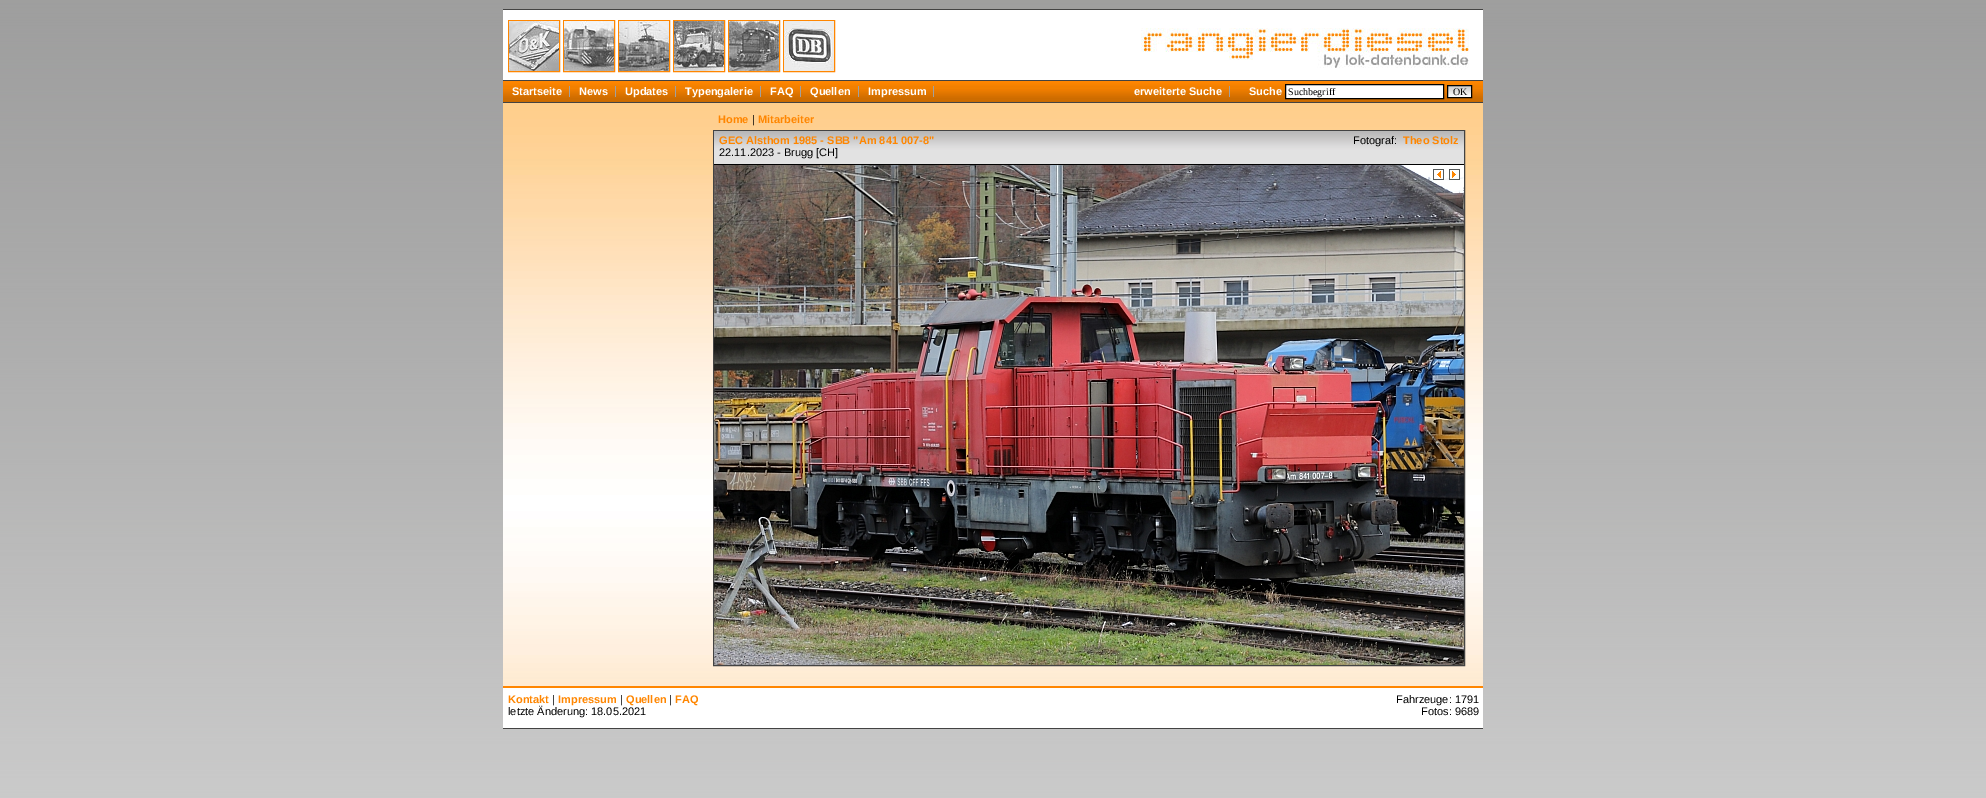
%!PS
<< /PageSize [1986 798] >> setpagedevice
/rgb { dup -16 bitshift 255 div exch dup -8 bitshift 255 and 255 div exch 255 and 255 div setrgbcolor } def
/font { [ exch dup neg 0 0 3 -1 roll 0 0 ] selectfont } def
/text { moveto show } def
/picture { 5 dict begin { /h /w /y /x /name } { exch def } forall
  gsave x y translate w h scale
  w h 8 [w 0 0 h 0 0] name (r) file false 3 colorimage grestore end } def
0 798 translate 1 -1 scale
4 setmiterlimit
/s1 { /LiberationSans-Bold 11 font 16#FFFFFF rgb } def
/s2 { /LiberationSerif-Regular 10 font 16#000000 rgb } def
/s3 { /LiberationSans-Bold 11 font 16#FF8600 rgb } def
/s4 { /LiberationSans-Regular 11 font 16#000000 rgb } def
16#FFFFFF rgb
0 0 1986 798 rectfill
(pic1.raw) 0 0 1986 798 picture
503 10 980 70 rectfill
16#434343 rgb
503 9 980 1 rectfill
16#FF8600 rgb
508.5 20.5 51 51 rectstroke
563.5 20.5 51 51 rectstroke
618.5 20.5 51 51 rectstroke
673.5 20.5 51 51 rectstroke
728.5 20.5 51 51 rectstroke
783.5 20.5 51 51 rectstroke
(pic2.raw) 509 21 50 50 picture
(pic3.raw) 564 21 50 50 picture
(pic4.raw) 619 21 50 50 picture
(pic5.raw) 674 21 50 50 picture
(pic6.raw) 729 21 50 50 picture
(pic7.raw) 784 21 50 50 picture
(pic8.raw) 1141 28 328 40 picture
16#434343 rgb
503 80 980 1 rectfill
(pic9.raw) 503 81 980 21 picture
s1
(Startseite) 512 95 text
16#A0A0A0 rgb
569 86 1 11 rectfill
s1
(News) 579 95 text
16#A0A0A0 rgb
615 86 1 11 rectfill
s1
(Updates) 625 95 text
16#A0A0A0 rgb
675 86 1 11 rectfill
s1
(Typengalerie) 685 95 text
16#A0A0A0 rgb
760 86 1 11 rectfill
s1
(FAQ) 770 95 text
16#A0A0A0 rgb
800 86 1 11 rectfill
s1
(Quellen) 810 95 text
16#A0A0A0 rgb
858 86 1 11 rectfill
s1
(Impressum) 868 95 text
16#A0A0A0 rgb
933 86 1 11 rectfill
s1
(erweiterte Suche) 1134 95 text
16#A0A0A0 rgb
1229 86 1 11 rectfill
s1
(Suche) 1249 95 text
1285.5 84.5 moveto 1443.5 84.5 lineto 1443.5 98.5 lineto 1285.5 98.5 lineto closepath gsave fill grestore
16#000000 rgb
stroke
s2
(Suchbegriff) 1288 95 text
(pic10.raw) 1448 86 23 11 picture
1447.5 85.5 24 12 rectstroke
(OK) 1453 95 text
(pic11.raw) 503 103 980 583 picture
16#434343 rgb
503 102 980 1 rectfill
s3
(Home) 718 123 text
s4
(|) 752 123 text
s3
(Mitarbeiter) 758 123 text
16#434343 rgb
713.5 130.5 751 535 rectstroke
(pic12.raw) 714 131 750 33 picture
16#000000 rgb
714 164 750 1 rectfill
s3
(GEC Alsthom 1985 - SBB "Am 841 007-8") 719 144 text
s4
(22.11.2023 - Brugg [CH]) 719 156 text
(Fotograf:) 1353 144 text
s3
(Theo Stolz) 1403 144 text
(pic13.raw) 714 165 750 500 picture
(pic14.raw) 1433 169 11 11 picture
(pic15.raw) 1449 169 11 11 picture
16#FFFFFF rgb
503 688 980 40 rectfill
16#FF8600 rgb
503 686 980 2 rectfill
16#434343 rgb
503 728 980 1 rectfill
s3
(Kontakt) 508 703 text
s4
(|) 552 703 text
s3
(Impressum) 558 703 text
s4
(|) 620 703 text
s3
(Quellen) 626 703 text
s4
(|) 669 703 text
s3
(FAQ) 675 703 text
s4
(letzte Änderung: 18.05.2021) 508 715 text
(Fahrzeuge: 1791) 1396 703 text
(Fotos: 9689) 1421 715 text
showpage
